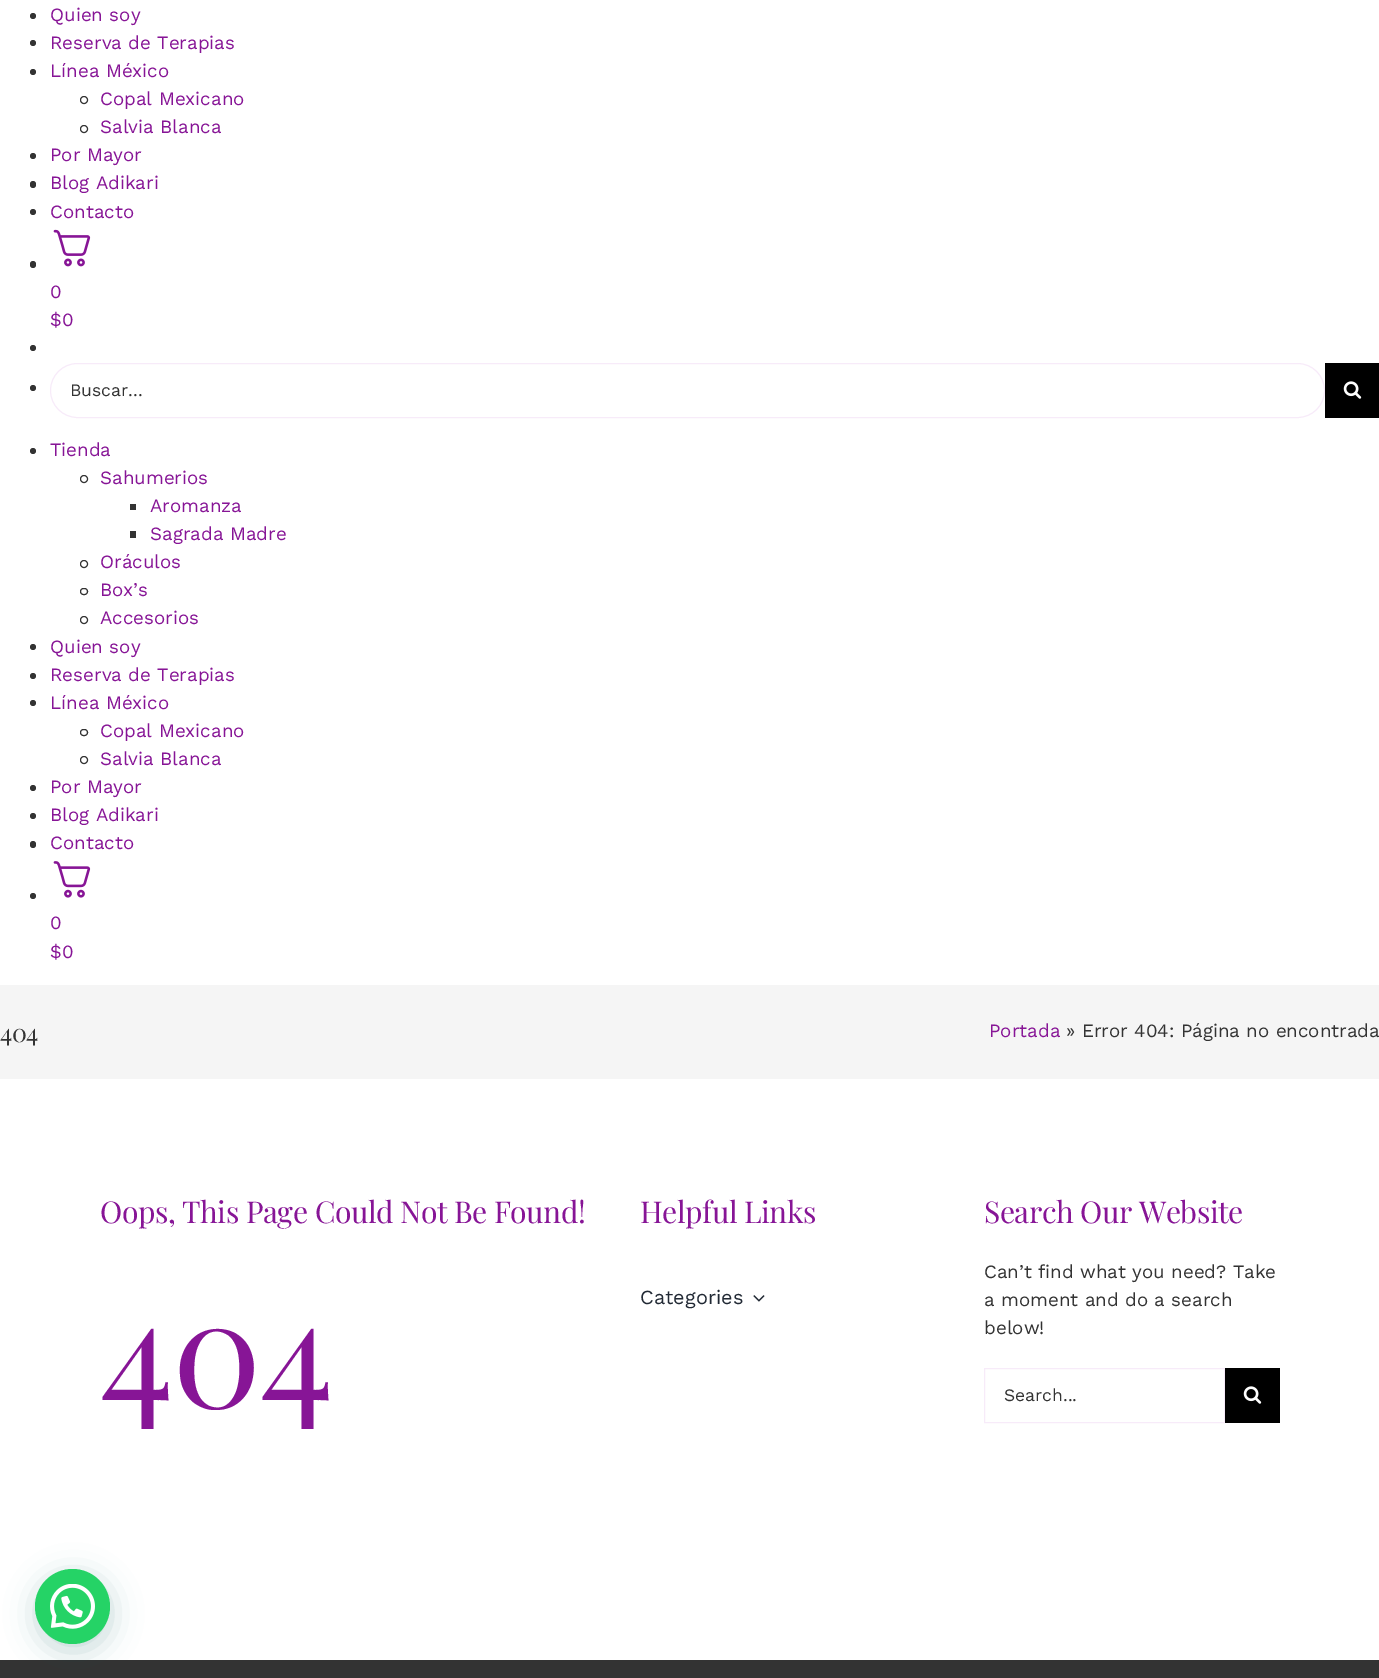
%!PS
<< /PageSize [1379 1678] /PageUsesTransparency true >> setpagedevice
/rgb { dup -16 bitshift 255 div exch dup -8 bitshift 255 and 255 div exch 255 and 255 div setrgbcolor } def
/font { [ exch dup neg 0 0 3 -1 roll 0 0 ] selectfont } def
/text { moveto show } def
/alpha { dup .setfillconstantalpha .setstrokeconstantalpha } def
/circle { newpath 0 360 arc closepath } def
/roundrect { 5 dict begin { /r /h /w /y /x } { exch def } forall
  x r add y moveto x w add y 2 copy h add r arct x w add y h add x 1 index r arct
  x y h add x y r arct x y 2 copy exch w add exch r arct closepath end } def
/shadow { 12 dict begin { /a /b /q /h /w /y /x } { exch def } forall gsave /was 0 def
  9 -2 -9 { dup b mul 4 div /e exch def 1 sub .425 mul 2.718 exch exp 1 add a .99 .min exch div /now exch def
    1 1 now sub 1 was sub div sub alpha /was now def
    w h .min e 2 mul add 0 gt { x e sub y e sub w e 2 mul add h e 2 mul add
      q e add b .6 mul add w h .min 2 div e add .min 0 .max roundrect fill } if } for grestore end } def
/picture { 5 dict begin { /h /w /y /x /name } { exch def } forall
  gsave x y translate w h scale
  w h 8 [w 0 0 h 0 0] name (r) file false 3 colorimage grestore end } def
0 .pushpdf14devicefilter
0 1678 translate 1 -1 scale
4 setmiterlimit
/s1 { /WorkSans-Regular 18.75 font 16#871596 rgb } def
/s2 { /WorkSans-Regular 17.5 font 16#333333 rgb } def
/s3 { /WorkSans-Regular 18.75 font 16#333333 rgb } def
/s4 { /WorkSans-Regular 20 font 16#212934 rgb } def
16#FFFFFF rgb
0 0 1379 1678 rectfill
16#333333 rgb
33 16 3 circle fill
s1
(Quien soy) 50 21 text
16#333333 rgb
33 43 3 circle fill
s1
(Reserva de Terapias) 50 49 text
16#333333 rgb
33 72 3 circle fill
s1
(Línea México) 50 77 text
16#333333 rgb
84 100 3.5 circle stroke
s1
(Copal Mexicano) 100 105 text
16#333333 rgb
84 129 3.5 circle stroke
s1
(Salvia Blanca) 100 133 text
16#333333 rgb
33 156 3 circle fill
s1
(Por Mayor) 50 161 text
16#333333 rgb
30 181 6 7 3 roundrect fill
s1
(Blog Adikari) 50 189 text
16#333333 rgb
33 212 3 circle fill
s1
(Contacto) 50 218 text
16#333333 rgb
30 261 6 7 3 roundrect fill
(pic1.raw) 53 229 38 38 picture
s1
(0) 50 298 text
($0) 50 326 text
16#333333 rgb
33 348 3 circle fill
33 388 3 circle fill
16#F7EBF9 rgb
50.5 363.5 1274 54 27 roundrect stroke
s2
(Buscar...) 70 396 text
16#000000 rgb
1325 363 54 55 rectfill
(pic2.raw) 1343 381 19 18 picture
16#333333 rgb
33 451 3 circle fill
s1
(Tienda) 50 456 text
16#333333 rgb
84 479 3.5 circle stroke
s1
(Sahumerios) 100 484 text
16#333333 rgb
130 504 6 6 rectfill
s1
(Aromanza) 150 512 text
16#333333 rgb
130 531 6 7 rectfill
s1
(Sagrada Madre) 150 540 text
16#333333 rgb
84 564 3.5 circle stroke
s1
(Oráculos) 100 568 text
16#333333 rgb
80.5 588.5 7 6 3 roundrect stroke
s1
(Box’s) 100 596 text
16#333333 rgb
84 620 3.5 circle stroke
s1
(Accesorios) 100 624 text
16#333333 rgb
33 647 3 circle fill
s1
(Quien soy) 50 653 text
16#333333 rgb
33 676 3 circle fill
s1
(Reserva de Terapias) 50 681 text
16#333333 rgb
33 703 3 circle fill
s1
(Línea México) 50 709 text
16#333333 rgb
80.5 729.5 7 6 3 roundrect stroke
s1
(Copal Mexicano) 100 737 text
16#333333 rgb
84 760 3.5 circle stroke
s1
(Salvia Blanca) 100 765 text
16#333333 rgb
33 788 3 circle fill
s1
(Por Mayor) 50 793 text
16#333333 rgb
33 816 3 circle fill
s1
(Blog Adikari) 50 821 text
16#333333 rgb
30 841 6 7 3 roundrect fill
s1
(Contacto) 50 849 text
16#333333 rgb
33 896 3 circle fill
(pic3.raw) 53 861 38 37 picture
s1
(0) 50 929 text
($0) 50 958 text
16#F5F5F5 rgb
0 985 1379 94 rectfill
/PlayfairDisplay-Regular 25 font
16#333333 rgb
0 1042 moveto -0.5 0 (404) ashow
s1
(Portada) 989 1037 text
s3
(» Error 404: Página no encontrada) 1066 1037 text
/PlayfairDisplay-Regular 30 font
16#871596 rgb
100 1223 moveto -0.45 0 (Oops, This Page Could Not Be Found!) ashow
/PlayfairDisplay-Regular 150 font
100 1408 moveto -2 0 (404) ashow
/PlayfairDisplay-Regular 30 font
640 1223 moveto -0.45 0 (Helpful Links) ashow
s4
(Categories) 640 1304 text
(pic4.raw) 753 1295 12 7 picture
/PlayfairDisplay-Regular 30 font
16#871596 rgb
984 1223 moveto -0.45 0 (Search Our Website) ashow
s3
(Can’t find what you need? Take) 984 1278 text
(a moment and do a search) 984 1306 text
(below!) 984 1334 text
16#F7EBF9 rgb
984.5 1368.5 240 54 rectstroke
s2
(Search...) 1004 1401 text
16#000000 rgb
1225 1368 55 55 rectfill
(pic2.raw) 1243 1386 19 18 picture
16#333333 rgb
0 1660 1379 18 rectfill
16#075E54 rgb
36 1576 75 75 37.5 15 0.24 shadow
16#25D366 rgb
72.5 1606.5 37.5 circle fill
(pic5.raw) 50 1584 45 45 picture
.poppdf14devicefilter showpage
